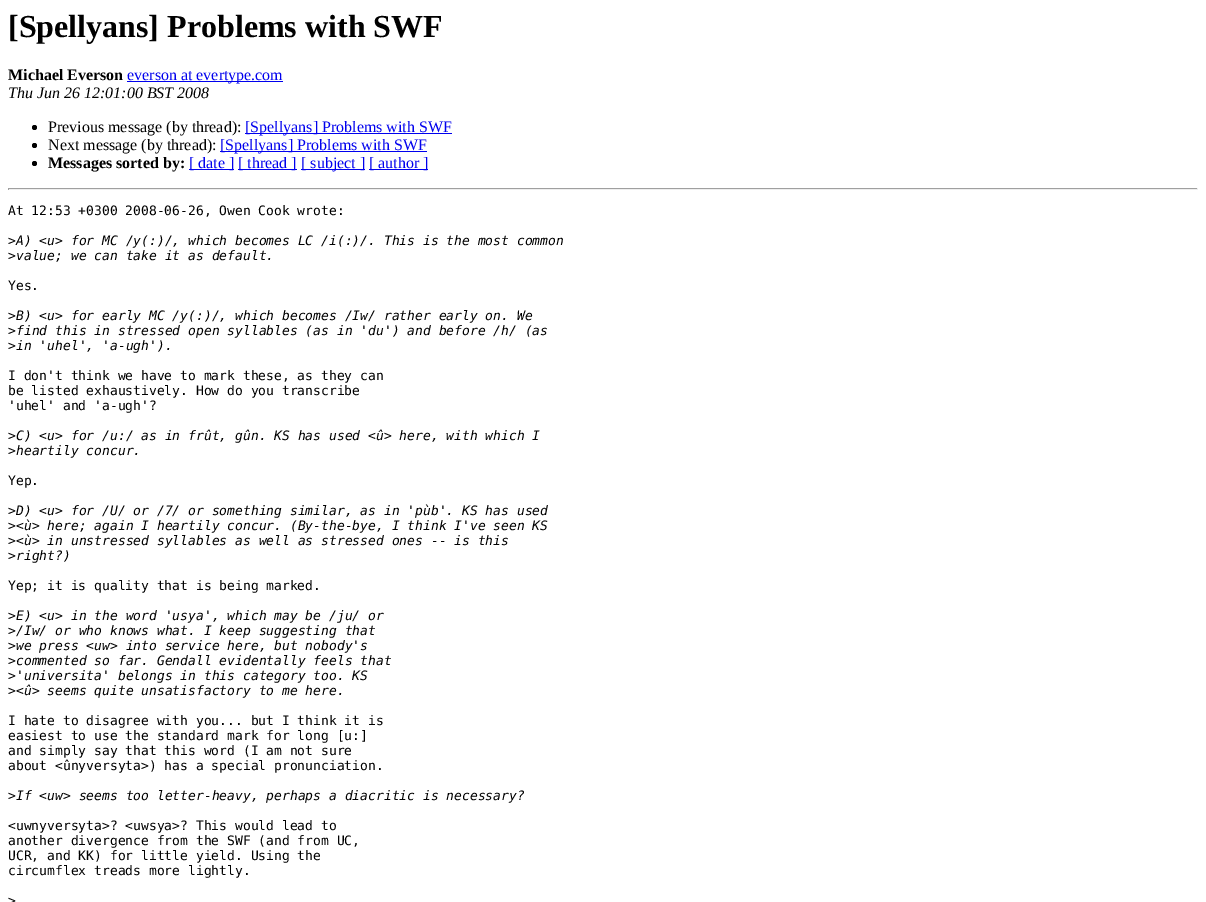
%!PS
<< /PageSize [1206 902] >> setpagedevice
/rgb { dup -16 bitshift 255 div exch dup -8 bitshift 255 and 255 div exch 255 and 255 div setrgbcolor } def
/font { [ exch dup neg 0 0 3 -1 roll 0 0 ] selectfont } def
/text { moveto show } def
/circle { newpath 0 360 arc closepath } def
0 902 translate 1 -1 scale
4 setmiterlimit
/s1 { /LiberationSerif-Bold 32 font 16#000000 rgb } def
/s2 { /LiberationSerif-Bold 16 font 16#000000 rgb } def
/s3 { /LiberationSerif-Regular 16 font 16#0000EE rgb } def
/s4 { /LiberationSerif-Italic 16 font 16#000000 rgb } def
/s5 { /LiberationSerif-Regular 16 font 16#000000 rgb } def
/s6 { /DejaVuSansMono-Regular 13 font 16#000000 rgb } def
/s7 { /DejaVuSansMono-Italic 13 font 16#000000 rgb } def
16#FFFFFF rgb
0 0 1206 902 rectfill
s1
([Spellyans] Problems with SWF) 8 37 text
s2
(Michael Everson) 8 80 text
16#0000EE rgb
127 81 156 1 rectfill
s3
(everson at evertype.com) 127 80 text
s4
(Thu Jun 26 12:01:00 BST 2008) 8 98 text
34.5 127.5 2.5 circle fill
s5
(Previous message \(by thread\):) 48 132 text
16#0000EE rgb
245 133 207 1 rectfill
([Spellyans] Problems with SWF) 245 132 text
16#000000 rgb
34.5 145.5 2.5 circle fill
(Next message \(by thread\):) 48 150 text
16#0000EE rgb
220 151 207 1 rectfill
([Spellyans] Problems with SWF) 220 150 text
16#000000 rgb
34.5 163.5 2.5 circle fill
s2
(Messages sorted by:) 48 168 text
16#0000EE rgb
189 169 45 1 rectfill
s3
([ date ]) 189 168 text
238 169 59 1 rectfill
([ thread ]) 238 168 text
301 169 64 1 rectfill
([ subject ]) 301 168 text
369 169 59 1 rectfill
([ author ]) 369 168 text
16#9F9F9F rgb
8 188 1190 1 rectfill
16#EEEEEE rgb
1197 188 1 2 rectfill
8 189 1190 1 rectfill
16#9F9F9F rgb
8 188 1 2 rectfill
s6
(At 12:53 +0300 2008-06-26, Owen Cook wrote:) 8 215 text
(>) 8 245 text
s7
(A\) <u> for MC /y\(:\)/, which becomes LC /i\(:\)/. This is the most common) 16 245 text
s6
(>) 8 260 text
s7
(value; we can take it as default.) 16 260 text
s6
(Yes.) 8 290 text
(>) 8 320 text
s7
(B\) <u> for early MC /y\(:\)/, which becomes /Iw/ rather early on. We) 16 320 text
s6
(>) 8 335 text
s7
(find this in stressed open syllables \(as in 'du'\) and before /h/ \(as) 16 335 text
s6
(>) 8 350 text
s7
(in 'uhel', 'a-ugh'\).) 16 350 text
s6
(I don't think we have to mark these, as they can) 8 380 text
(be listed exhaustively. How do you transcribe) 8 395 text
('uhel' and 'a-ugh'?) 8 410 text
(>) 8 440 text
s7
(C\) <u> for /u:/ as in frût, gûn. KS has used <û> here, with which I) 16 440 text
s6
(>) 8 455 text
s7
(heartily concur.) 16 455 text
s6
(Yep.) 8 485 text
(>) 8 515 text
s7
(D\) <u> for /U/ or /7/ or something similar, as in 'pùb'. KS has used) 16 515 text
s6
(>) 8 530 text
s7
(<ù> here; again I heartily concur. \(By-the-bye, I think I've seen KS) 16 530 text
s6
(>) 8 545 text
s7
(<ù> in unstressed syllables as well as stressed ones -- is this) 16 545 text
s6
(>) 8 560 text
s7
(right?\)) 16 560 text
s6
(Yep; it is quality that is being marked.) 8 590 text
(>) 8 620 text
s7
(E\) <u> in the word 'usya', which may be /ju/ or) 16 620 text
s6
(>) 8 635 text
s7
(/Iw/ or who knows what. I keep suggesting that) 16 635 text
s6
(>) 8 650 text
s7
(we press <uw> into service here, but nobody's) 16 650 text
s6
(>) 8 665 text
s7
(commented so far. Gendall evidentally feels that) 16 665 text
s6
(>) 8 680 text
s7
('universita' belongs in this category too. KS) 16 680 text
s6
(>) 8 695 text
s7
(<û> seems quite unsatisfactory to me here.) 16 695 text
s6
(I hate to disagree with you... but I think it is) 8 725 text
(easiest to use the standard mark for long [u:]) 8 740 text
(and simply say that this word \(I am not sure) 8 755 text
(about <ûnyversyta>\) has a special pronunciation.) 8 770 text
(>) 8 800 text
s7
(If <uw> seems too letter-heavy, perhaps a diacritic is necessary?) 16 800 text
s6
(<uwnyversyta>? <uwsya>? This would lead to) 8 830 text
(another divergence from the SWF \(and from UC,) 8 845 text
(UCR, and KK\) for little yield. Using the) 8 860 text
(circumflex treads more lightly.) 8 875 text
(>) 8 905 text
showpage
